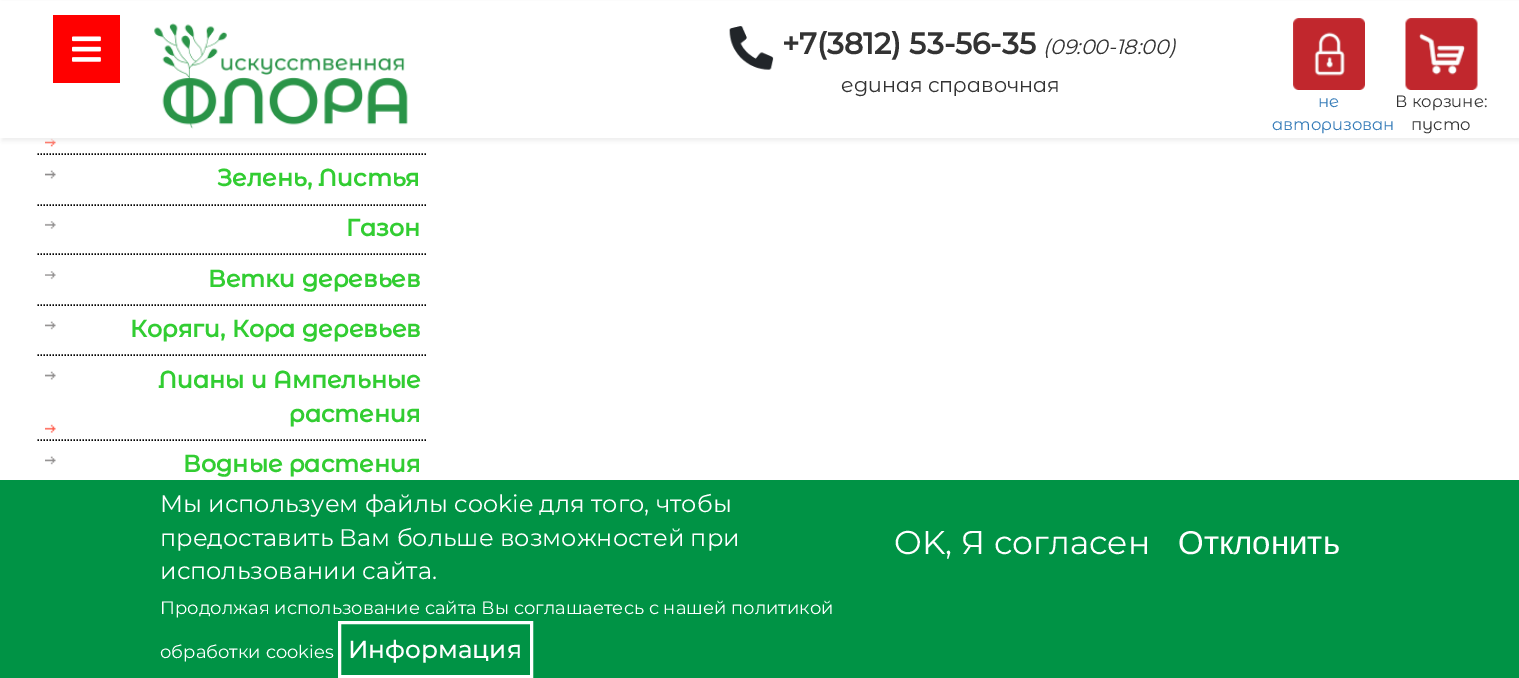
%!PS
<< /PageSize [1519 678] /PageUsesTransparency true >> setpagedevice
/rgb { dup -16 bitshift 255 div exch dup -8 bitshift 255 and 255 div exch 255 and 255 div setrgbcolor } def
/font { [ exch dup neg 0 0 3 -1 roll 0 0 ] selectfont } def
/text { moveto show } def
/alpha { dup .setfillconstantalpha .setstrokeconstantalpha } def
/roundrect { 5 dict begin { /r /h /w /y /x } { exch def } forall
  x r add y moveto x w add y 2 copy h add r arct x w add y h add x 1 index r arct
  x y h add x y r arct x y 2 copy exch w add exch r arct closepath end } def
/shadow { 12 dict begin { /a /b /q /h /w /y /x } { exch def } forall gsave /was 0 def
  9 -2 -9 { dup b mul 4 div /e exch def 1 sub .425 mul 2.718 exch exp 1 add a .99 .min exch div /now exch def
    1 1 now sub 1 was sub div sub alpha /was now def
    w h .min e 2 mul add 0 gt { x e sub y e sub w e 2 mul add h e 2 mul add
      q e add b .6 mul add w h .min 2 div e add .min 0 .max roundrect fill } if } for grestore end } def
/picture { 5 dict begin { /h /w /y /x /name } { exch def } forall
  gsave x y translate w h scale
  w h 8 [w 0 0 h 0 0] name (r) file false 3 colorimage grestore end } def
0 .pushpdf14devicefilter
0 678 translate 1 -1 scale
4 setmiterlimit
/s1 { /MontserratAlternates-Bold 29.75 font 16#333333 rgb } def
/s2 { /MontserratAlternates-Italic 20.75 font 16#333333 rgb } def
/s3 { /MontserratAlternates-Regular 20.75 font 16#333333 rgb } def
/s4 { /MontserratAlternates-Regular 16.5 font 16#337AB7 rgb } def
/s5 { /MontserratAlternates-Regular 16.5 font 16#333333 rgb } def
/s6 { /MontserratAlternates-Bold 23.75 font 16#32CD32 rgb } def
/s7 { /Montserrat-Regular 24 font 16#FFFFFF rgb } def
/s8 { /Montserrat-Regular 18 font 16#FFFFFF rgb } def
/s9 { /Montserrat-Medium 24.75 font 16#FFFFFF rgb } def
/s10 { /Montserrat-Regular 33 font 16#FFFFFF rgb } def
/s11 { /LiberationSans-Regular 33 font 16#FFFFFF rgb } def
16#FFFFFF rgb
0 0 1519 678 rectfill
(pic6.raw) 45 138 11 9 picture
16#EEEEEE rgb
2 3 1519 138 0 2 1 shadow
16#FFFFFF rgb
0 1 1519 137 rectfill
16#FF0000 rgb
53 15 67 68 rectfill
(pic1.raw) 72 36 29 26 picture
(pic2.raw) 154 23 254 106 picture
(pic3.raw) 729 26 45 44 picture
s1
(+7\(3812\) 53-56-35) 782 54 text
s2
(\(09:00-18:00\)) 1043 54 text
s3
(единая справочная) 841 92 text
(pic4.raw) 1293 18 72 72 picture
s4
(не) 1318 107 text
(авторизован) 1272 130 text
(pic5.raw) 1405 18 73 72 picture
s5
(В корзине:) 1395 107 text
(пусто) 1411 130 text
16#000000 rgb
1.5 setlinewidth
[1.5 1.5] 0 setdash
37.5 154 moveto 427.5 154 lineto stroke
37.5 205 moveto 427.5 205 lineto stroke
(pic7.raw) 45 170 11 9 picture
s6
(Зелень, Листья) 217 186 text
16#000000 rgb
37.5 254 moveto 427.5 254 lineto stroke
(pic8.raw) 45 221 11 8 picture
s6
(Газон) 346 236 text
16#000000 rgb
37.5 305 moveto 427.5 305 lineto stroke
(pic9.raw) 45 271 11 9 picture
s6
(Ветки деревьев) 208 287 text
16#000000 rgb
37.5 355 moveto 427.5 355 lineto stroke
(pic10.raw) 45 321 11 9 picture
s6
(Коряги, Кора деревьев) 130 337 text
16#000000 rgb
37.5 440 moveto 427.5 440 lineto stroke
(pic11.raw) 45 371 11 62 picture
s6
(Лианы и Ампельные) 158 388 text
(растения) 289 422 text
(pic10.raw) 45 456 11 9 picture
(Водные растения) 183 472 text
16#009345 rgb
0 480 1519 198 rectfill
s7
(Мы используем файлы cookie для того, чтобы) 160 512 text
(предоставить Вам больше возможностей при) 160 546 text
(использовании сайта.) 160 579 text
s8
(Продолжая использование сайта Вы соглашаетесь с нашей политикой) 160 614 text
(обработки cookies) 160 658 text
3 setlinewidth
[] 0 setdash
339.5 622.5 192 54 rectstroke
s9
(Информация) 348 658 text
s10
(OK, Я согласен) 894 554 text
s11
(Отклонить) 1178 554 text
.poppdf14devicefilter showpage
